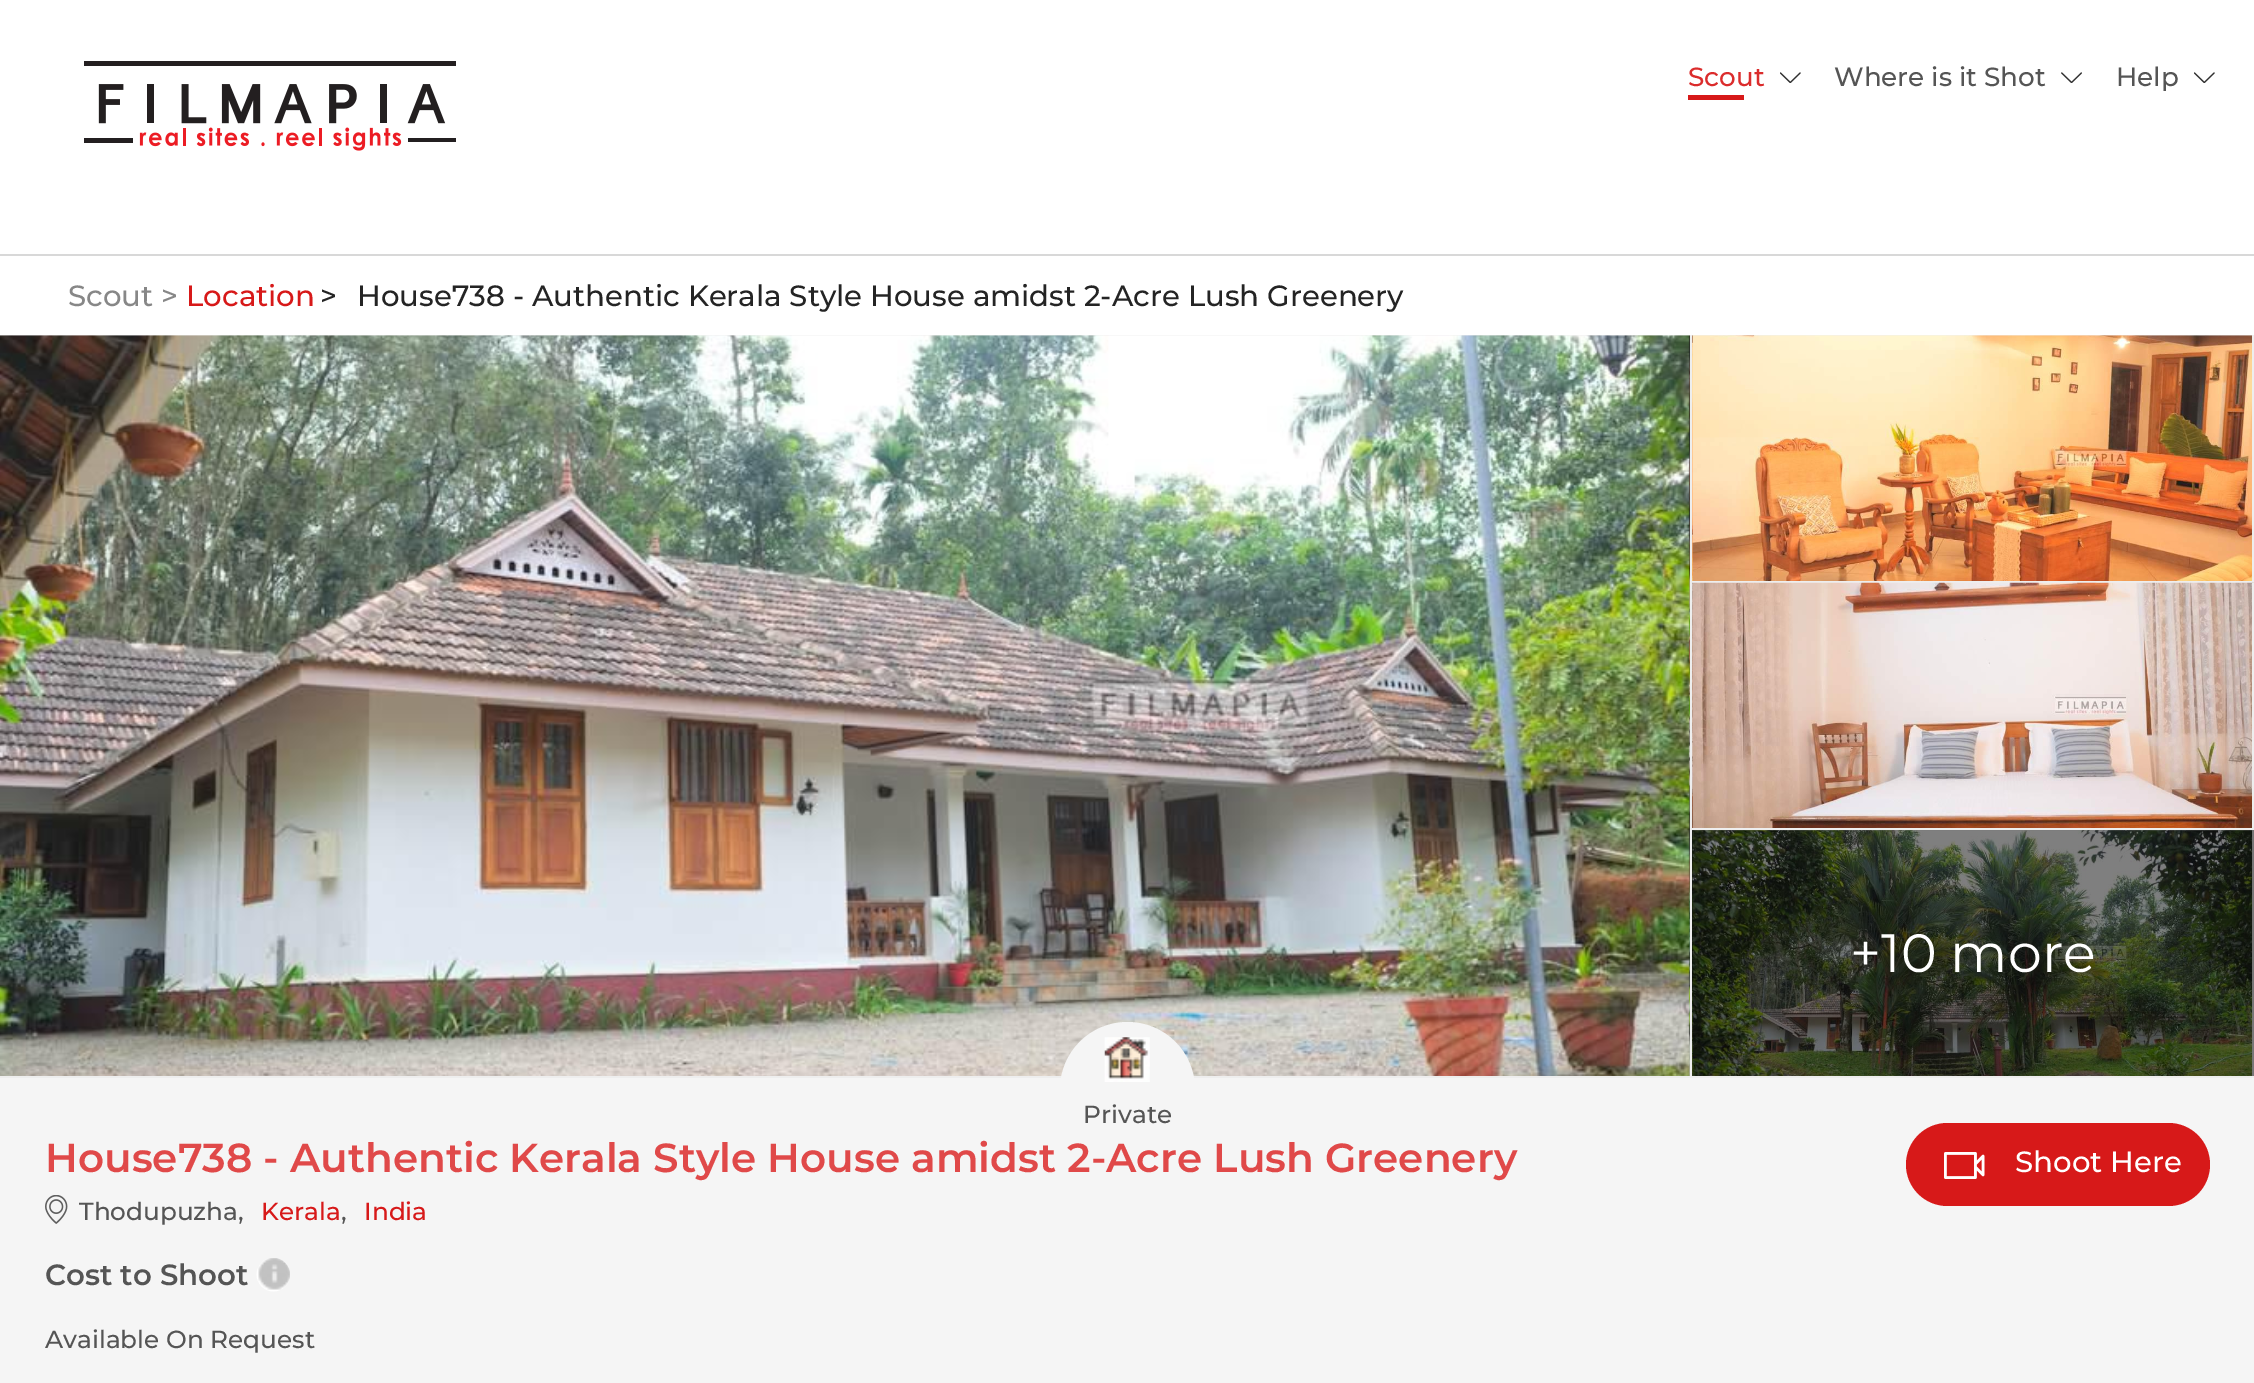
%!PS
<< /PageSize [2254 1383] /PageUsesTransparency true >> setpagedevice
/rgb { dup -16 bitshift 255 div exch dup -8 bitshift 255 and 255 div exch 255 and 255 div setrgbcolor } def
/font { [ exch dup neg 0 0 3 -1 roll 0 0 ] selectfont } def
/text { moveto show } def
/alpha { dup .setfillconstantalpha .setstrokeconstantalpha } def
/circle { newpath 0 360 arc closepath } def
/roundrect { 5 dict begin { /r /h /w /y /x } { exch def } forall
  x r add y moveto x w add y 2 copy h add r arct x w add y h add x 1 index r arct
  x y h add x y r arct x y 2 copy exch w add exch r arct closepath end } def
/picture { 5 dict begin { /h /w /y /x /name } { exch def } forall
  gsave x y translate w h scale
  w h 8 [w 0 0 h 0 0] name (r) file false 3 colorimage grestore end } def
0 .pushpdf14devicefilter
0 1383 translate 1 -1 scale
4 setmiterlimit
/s1 { /Montserrat-Medium 26.25 font 16#DB2C2C rgb } def
/s2 { /Montserrat-Medium 26.25 font 16#555555 rgb } def
/s3 { /Montserrat-Medium 29.25 font 16#878787 rgb } def
/s4 { /Montserrat-Medium 29.25 font 16#D71919 rgb } def
/s5 { /Montserrat-Medium 29.25 font 16#242424 rgb } def
/s6 { /Montserrat-Regular 54 font 16#FFFFFF rgb } def
/s7 { /Montserrat-Medium 24.75 font 16#555555 rgb } def
/s8 { /Montserrat-SemiBold 40.5 font 16#E04949 rgb } def
/s9 { /Montserrat-Medium 24.75 font 16#D71919 rgb } def
/s10 { /Montserrat-SemiBold 29.25 font 16#555555 rgb } def
/s11 { /Montserrat-Medium 29.25 font 16#FFFFFF rgb } def
16#FFFFFF rgb
0 0 2254 1383 rectfill
16#D8D8D8 rgb
0 254 2254 2 rectfill
(pic1.raw) 84 61 372 90 picture
(pic2.raw) 1780 72 21 11 picture
s1
(Scout) 1688 86 text
16#D71919 rgb
1688 95 56 5 rectfill
(pic3.raw) 2061 72 21 11 picture
s2
(Where is it Shot) 1834 86 text
(pic2.raw) 2194 72 21 11 picture
(Help) 2116 86 text
16#EEEEEE rgb
0 335 2252 496 rectfill
s3
(Scout >) 68 306 text
s4
(Location) 186 306 text
s5
(>) 320 306 text
(House738 - Authentic Kerala Style House amidst 2-Acre Lush Greenery) 357 306 text
(pic4.raw) 0 335 1690 741 picture
16#EEEEEE rgb
1690 831 2 247 rectfill
0 1076 1692 2 rectfill
(pic5.raw) 1692 335 560 246 picture
2252 335 2 248 rectfill
(pic6.raw) 1692 582 562 249 picture
2252 583 2 495 rectfill
1692 828 562 2 rectfill
(pic7.raw) 1692 830 560 246 picture
1692 1076 562 2 rectfill
0.5 alpha
16#000000 rgb
1692 830 562 246 rectfill
1 alpha
s6
(+10 more) 1850 972 text
16#F5F5F5 rgb
0 1078 2254 305 rectfill
1127.5 1089.5 67.5 circle fill
(pic8.raw) 1104 1037 46 45 picture
s7
(Private) 1083 1123 text
s8
(House738 - Authentic Kerala Style House amidst 2-Acre Lush Greenery) 45 1172 text
(pic9.raw) 45 1195 23 29 picture
s7
(Thodupuzha,) 79 1220 text
s9
(Kerala) 261 1220 text
s7
(,) 341 1220 text
s9
(India) 364 1220 text
s10
(Cost to Shoot) 45 1285 text
(pic10.raw) 256 1258 34 34 picture
s7
(Available On Request) 45 1348 text
16#D71919 rgb
1906 1123 304 83 41.5 roundrect fill
(pic11.raw) 1944 1152 41 27 picture
s11
(Shoot Here) 2015 1172 text
.poppdf14devicefilter showpage
